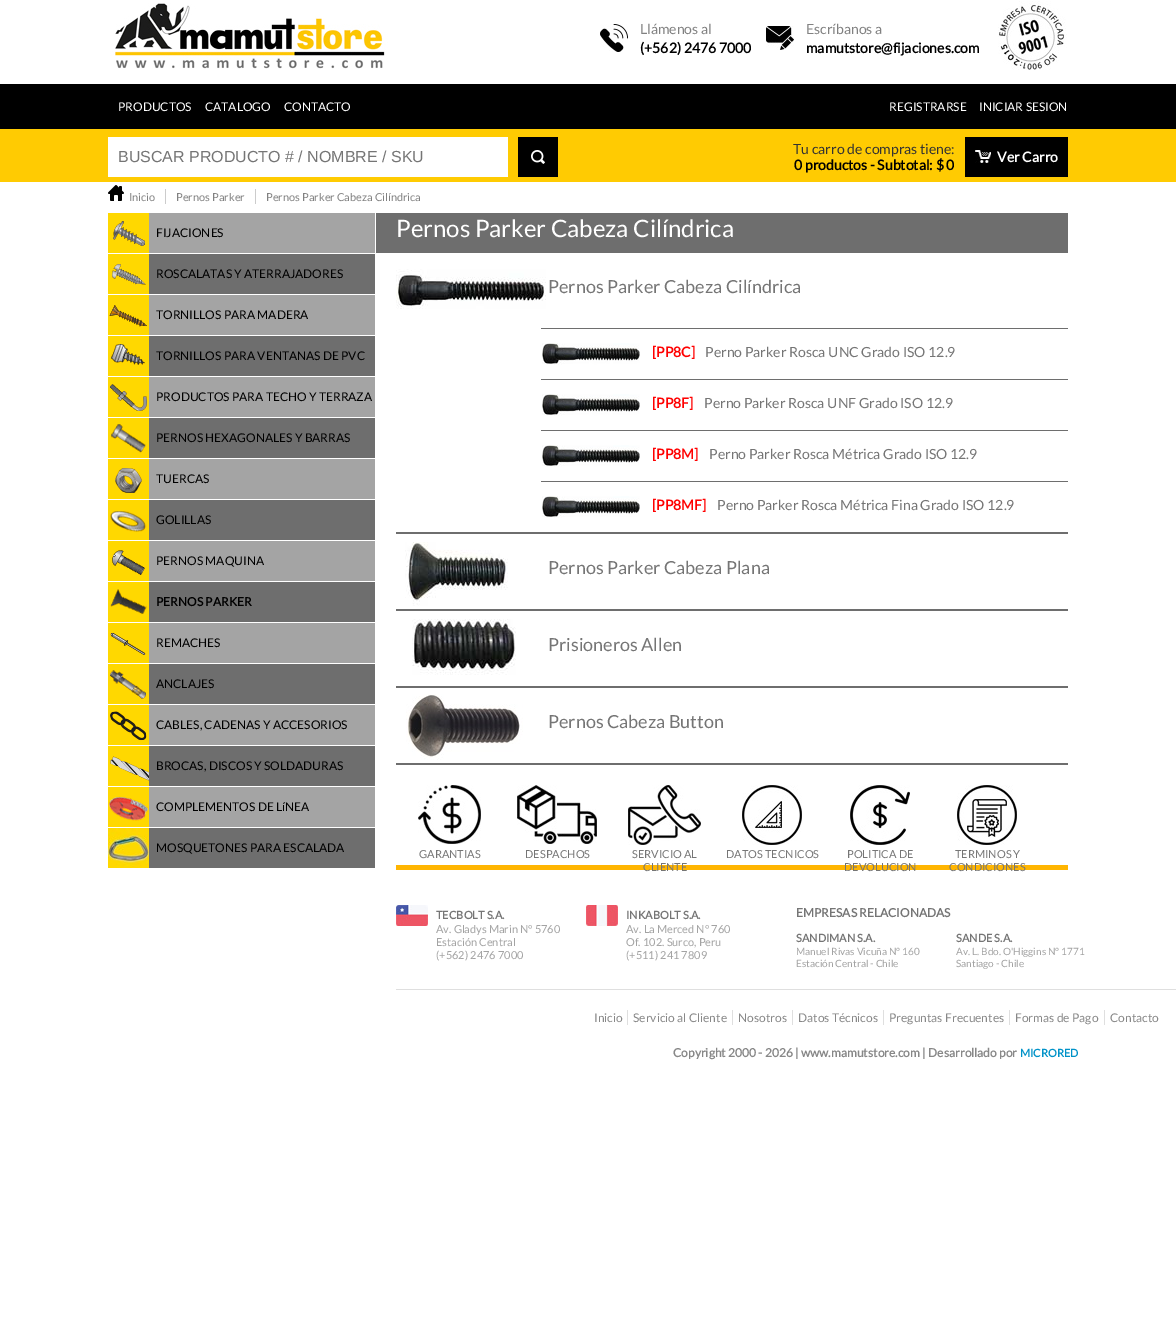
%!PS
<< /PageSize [1176 1323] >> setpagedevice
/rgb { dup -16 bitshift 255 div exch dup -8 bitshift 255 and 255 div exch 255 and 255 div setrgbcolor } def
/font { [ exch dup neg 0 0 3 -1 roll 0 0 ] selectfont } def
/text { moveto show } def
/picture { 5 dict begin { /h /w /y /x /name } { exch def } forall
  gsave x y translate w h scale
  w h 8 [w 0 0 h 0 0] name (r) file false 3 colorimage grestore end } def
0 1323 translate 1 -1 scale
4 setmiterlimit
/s1 { /Lato-Regular 14 font 16#818181 rgb } def
/s2 { /Lato-Bold 14 font 16#000000 rgb } def
/s3 { /Lato-Regular 12 font 16#FFFFFF rgb } def
/s4 { /LiberationSans-Regular 16 font 16#757575 rgb } def
/s5 { /Lato-Regular 14 font 16#333333 rgb } def
/s6 { /Lato-Bold 14 font 16#FFFFFF rgb } def
/s7 { /Lato-Regular 11 font 16#818181 rgb } def
/s8 { /Lato-Regular 12 font 16#000000 rgb } def
/s9 { /Lato-Bold 12 font 16#000000 rgb } def
/s10 { /Lato-Regular 24 font 16#FFFFFF rgb } def
/s11 { /Lato-Regular 18 font 16#757575 rgb } def
/s12 { /Lato-Bold 14 font 16#FF0000 rgb } def
/s13 { /Lato-Regular 14 font 16#757575 rgb } def
/s14 { /Lato-Regular 11 font 16#757575 rgb } def
/s15 { /Lato-Bold 11 font 16#757575 rgb } def
/s16 { /Lato-Regular 11 font 16#A3A3A3 rgb } def
/s17 { /Lato-Bold 12 font 16#757575 rgb } def
/s18 { /Lato-Regular 10 font 16#A3A3A3 rgb } def
/s19 { /Lato-Regular 12 font 16#888888 rgb } def
/s20 { /Lato-Bold 12 font 16#888888 rgb } def
/s21 { /Lato-Bold 11 font 16#0092C8 rgb } def
16#FFFFFF rgb
0 0 1176 1323 rectfill
16#000000 rgb
0 84 1176 45 rectfill
(pic1.raw) 110 3 278 66 picture
(pic2.raw) 600 24 28 28 picture
s1
(Llámenos al) 640 34 text
s2
(\(+562\) 2476 7000) 640 53 text
(pic3.raw) 766 26 28 24 picture
s1
(Escríbanos a) 806 34 text
s2
(mamutstore@fijaciones.com) 806 53 text
(pic4.raw) 998 1 69 69 picture
s3
(PRODUCTOS) 118 111 text
(CATALOGO) 205 111 text
(CONTACTO) 284 111 text
(REGISTRARSE) 889 111 text
(INICIAR SESION) 979 111 text
16#FFCB02 rgb
0 129 1176 53 rectfill
16#FFFFFF rgb
108 137 400 40 rectfill
s4
(BUSCAR PRODUCTO # / NOMBRE / SKU) 118 162 text
16#000000 rgb
518 137 40 40 rectfill
(pic5.raw) 531 150 14 14 picture
s5
(Tu carro de compras tiene:) 793 154 text
16#000000 rgb
965 137 103 40 rectfill
(pic6.raw) 975 150 16 13 picture
s6
(Ver Carro) 997 162 text
s2
(0 productos - Subtotal: $ 0) 794 170 text
(pic7.raw) 108 185 16 16 picture
16#CCCCCC rgb
165 189 1 15 rectfill
s7
(Inicio) 129 201 text
16#CCCCCC rgb
255 189 1 15 rectfill
s7
(Pernos Parker) 176 201 text
(Pernos Parker Cabeza Cilíndrica) 266 201 text
16#A4A4A4 rgb
149 213 226 40 rectfill
(pic8.raw) 108 213 41 40 picture
s8
(FIJACIONES) 156 237 text
16#6E6E6E rgb
149 254 226 40 rectfill
(pic9.raw) 108 254 41 40 picture
s8
(ROSCALATAS Y ATERRAJADORES) 156 278 text
16#A4A4A4 rgb
149 295 226 40 rectfill
(pic10.raw) 108 295 41 40 picture
s8
(TORNILLOS PARA MADERA) 156 319 text
16#6E6E6E rgb
149 336 226 40 rectfill
(pic11.raw) 108 336 41 40 picture
s8
(TORNILLOS PARA VENTANAS DE PVC) 156 360 text
16#A4A4A4 rgb
149 377 226 40 rectfill
(pic12.raw) 108 377 41 40 picture
s8
(PRODUCTOS PARA TECHO Y TERRAZA) 156 401 text
16#6E6E6E rgb
149 418 226 40 rectfill
(pic13.raw) 108 418 41 40 picture
s8
(PERNOS HEXAGONALES Y BARRAS) 156 442 text
16#A4A4A4 rgb
149 459 226 40 rectfill
(pic14.raw) 108 459 41 40 picture
s8
(TUERCAS) 156 483 text
16#6E6E6E rgb
149 500 226 40 rectfill
(pic15.raw) 108 500 41 40 picture
s8
(GOLILLAS) 156 524 text
16#A4A4A4 rgb
149 541 226 40 rectfill
(pic16.raw) 108 541 41 40 picture
s8
(PERNOS MAQUINA) 156 565 text
16#6E6E6E rgb
149 582 226 40 rectfill
(pic17.raw) 108 582 41 40 picture
s9
(PERNOS PARKER) 156 606 text
16#A4A4A4 rgb
149 623 226 40 rectfill
(pic18.raw) 108 623 41 40 picture
s8
(REMACHES) 156 647 text
16#6E6E6E rgb
149 664 226 40 rectfill
(pic19.raw) 108 664 41 40 picture
s8
(ANCLAJES) 156 688 text
16#A4A4A4 rgb
149 705 226 40 rectfill
(pic20.raw) 108 705 41 40 picture
s8
(CABLES, CADENAS Y ACCESORIOS) 156 729 text
16#6E6E6E rgb
149 746 226 40 rectfill
(pic21.raw) 108 746 41 40 picture
s8
(BROCAS, DISCOS Y SOLDADURAS) 156 770 text
16#A4A4A4 rgb
149 787 226 40 rectfill
(pic22.raw) 108 787 41 40 picture
s8
(COMPLEMENTOS DE LíNEA) 156 811 text
16#6E6E6E rgb
149 828 226 40 rectfill
(pic23.raw) 108 828 41 40 picture
s8
(MOSQUETONES PARA ESCALADA) 156 852 text
16#6E6E6E rgb
376 213 692 40 rectfill
s10
(Pernos Parker Cabeza Cilíndrica) 396 237 text
16#6E6E6E rgb
396 532 672 2 rectfill
(pic24.raw) 396 269 150 40 picture
s11
(Pernos Parker Cabeza Cilíndrica) 548 293 text
16#6E6E6E rgb
541 328 527 1 rectfill
(pic25.raw) 542 343 98 22 picture
s12
([PP8C]) 652 357 text
s13
(Perno Parker Rosca UNC Grado ISO 12.9) 705 357 text
16#6E6E6E rgb
541 379 527 1 rectfill
(pic25.raw) 542 394 98 22 picture
s12
([PP8F]) 652 408 text
s13
(Perno Parker Rosca UNF Grado ISO 12.9) 704 408 text
16#6E6E6E rgb
541 430 527 1 rectfill
(pic25.raw) 542 445 98 22 picture
s12
([PP8M]) 652 459 text
s13
(Perno Parker Rosca Métrica Grado ISO 12.9) 709 459 text
16#6E6E6E rgb
541 481 527 1 rectfill
(pic25.raw) 542 496 98 22 picture
s12
([PP8MF]) 652 510 text
s13
(Perno Parker Rosca Métrica Fina Grado ISO 12.9) 717 510 text
16#6E6E6E rgb
396 609 672 2 rectfill
(pic26.raw) 405 542 103 64 picture
s11
(Pernos Parker Cabeza Plana) 548 574 text
16#6E6E6E rgb
396 686 672 2 rectfill
(pic27.raw) 412 619 104 56 picture
s11
(Prisioneros Allen) 548 651 text
16#6E6E6E rgb
396 763 672 2 rectfill
(pic28.raw) 406 694 117 66 picture
s11
(Pernos Cabeza Button) 548 728 text
(pic29.raw) 418 785 63 59 picture
s14
(GARANTIAS) 419 858 text
(pic30.raw) 517 785 80 59 picture
(DESPACHOS) 525 858 text
(pic31.raw) 628 785 73 60 picture
(SERVICIO AL) 632 858 text
16#FFB501 rgb
396 865 672 5 rectfill
s14
(CLIENTE) 643 871 text
(pic32.raw) 742 785 60 60 picture
(DATOS TECNICOS) 726 858 text
(pic33.raw) 850 785 60 60 picture
(POLITICA DE) 847 858 text
(DEVOLUCION) 844 871 text
(pic34.raw) 957 785 60 60 picture
(TERMINOS Y) 955 858 text
(CONDICIONES) 949 871 text
(pic35.raw) 396 905 32 21 picture
s15
(TECBOLT S.A.) 436 919 text
s16
(Av. Gladys Marin N° 5760) 436 933 text
(Estación Central) 436 946 text
(\(+562\) 2476 7000) 436 959 text
(pic36.raw) 586 905 32 21 picture
s15
(INKABOLT S.A.) 626 919 text
s16
(Av. La Merced N° 760) 626 933 text
(Of. 102. Surco, Peru) 626 946 text
(\(+511\) 241 7809) 626 959 text
s17
(EMPRESAS RELACIONADAS) 796 917 text
s15
(SANDIMAN S.A.) 796 942 text
s18
(Manuel Rivas Vicuña N° 160) 796 955 text
(Estación Central - Chile) 796 967 text
s15
(SANDE S.A.) 956 942 text
s18
(Av. L. Bdo. O'Higgins N° 1771) 956 955 text
(Santiago - Chile) 956 967 text
16#DFDFDF rgb
396 989 780 1 rectfill
627 1010 1 15 rectfill
s19
(Inicio) 594 1022 text
16#DFDFDF rgb
732 1010 1 15 rectfill
s19
(Servicio al Cliente) 633 1022 text
16#DFDFDF rgb
792 1010 1 15 rectfill
s19
(Nosotros) 738 1022 text
16#DFDFDF rgb
883 1010 1 15 rectfill
s19
(Datos Técnicos) 798 1022 text
16#DFDFDF rgb
1009 1010 1 15 rectfill
s19
(Preguntas Frecuentes) 889 1022 text
16#DFDFDF rgb
1104 1010 1 15 rectfill
s19
(Formas de Pago) 1015 1022 text
(Contacto) 1110 1022 text
s20
(Copyright 2000 - 2026 | www.mamutstore.com | Desarrollado por) 673 1057 text
s21
(MICRORED) 1020 1057 text
showpage
